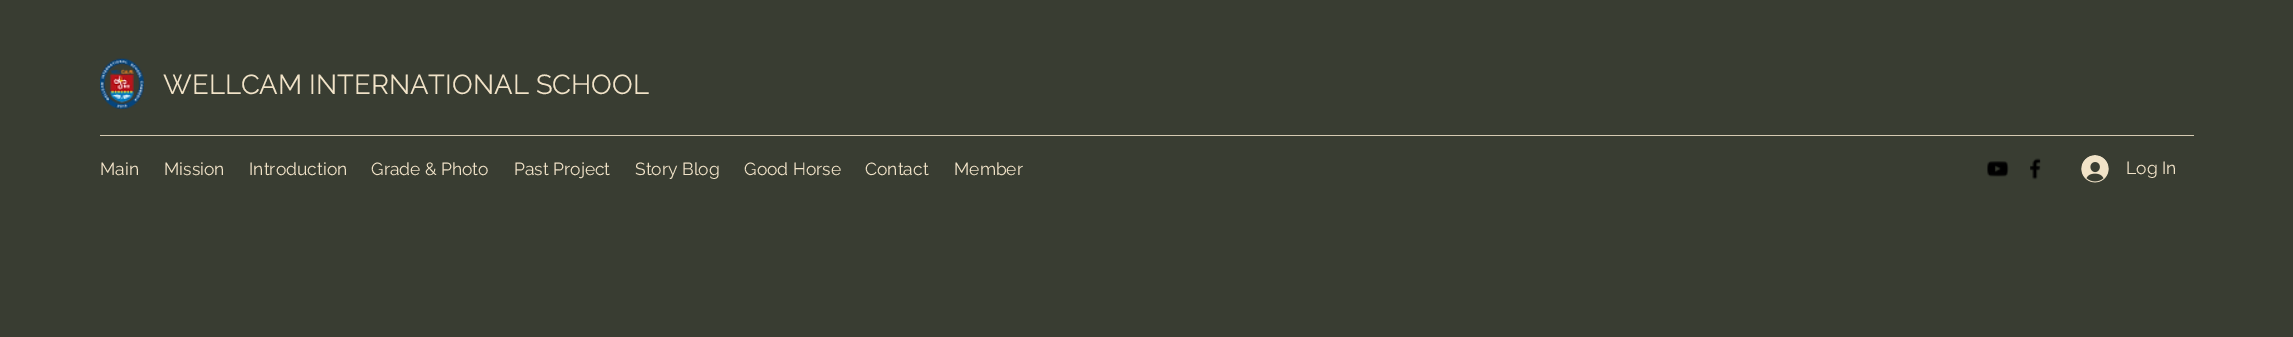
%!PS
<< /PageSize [2293 337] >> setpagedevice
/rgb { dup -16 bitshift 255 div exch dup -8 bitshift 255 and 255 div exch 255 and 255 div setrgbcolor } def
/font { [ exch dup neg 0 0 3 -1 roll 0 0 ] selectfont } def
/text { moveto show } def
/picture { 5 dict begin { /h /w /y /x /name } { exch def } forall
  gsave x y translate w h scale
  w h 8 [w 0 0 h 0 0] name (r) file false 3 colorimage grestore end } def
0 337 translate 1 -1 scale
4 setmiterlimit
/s1 { /Raleway-Regular 27.5 font 16#F1E3C8 rgb } def
/s2 { /Raleway-Regular 17.5 font 16#F1E3C8 rgb } def
16#393D32 rgb
0 0 2293 337 rectfill
(pic1.raw) 100 58 44 51 picture
s1
(WELLCAM INTERNATIONAL SCHOOL) 163 94 text
16#D5CAB2 rgb
100 135 2094 1 rectfill
s2
(Main) 100 175 text
(Mission) 164 175 text
(Introduction) 249 175 text
(Grade & Photo) 371 175 text
(Past Project) 514 175 text
(Story Blog) 635 175 text
(Good Horse) 744 175 text
(Contact) 865 175 text
(Member) 954 175 text
(pic2.raw) 1987 161 22 16 picture
(pic3.raw) 2030 158 11 22 picture
(pic4.raw) 2081 155 28 28 picture
(Log In) 2126 174 text
showpage
